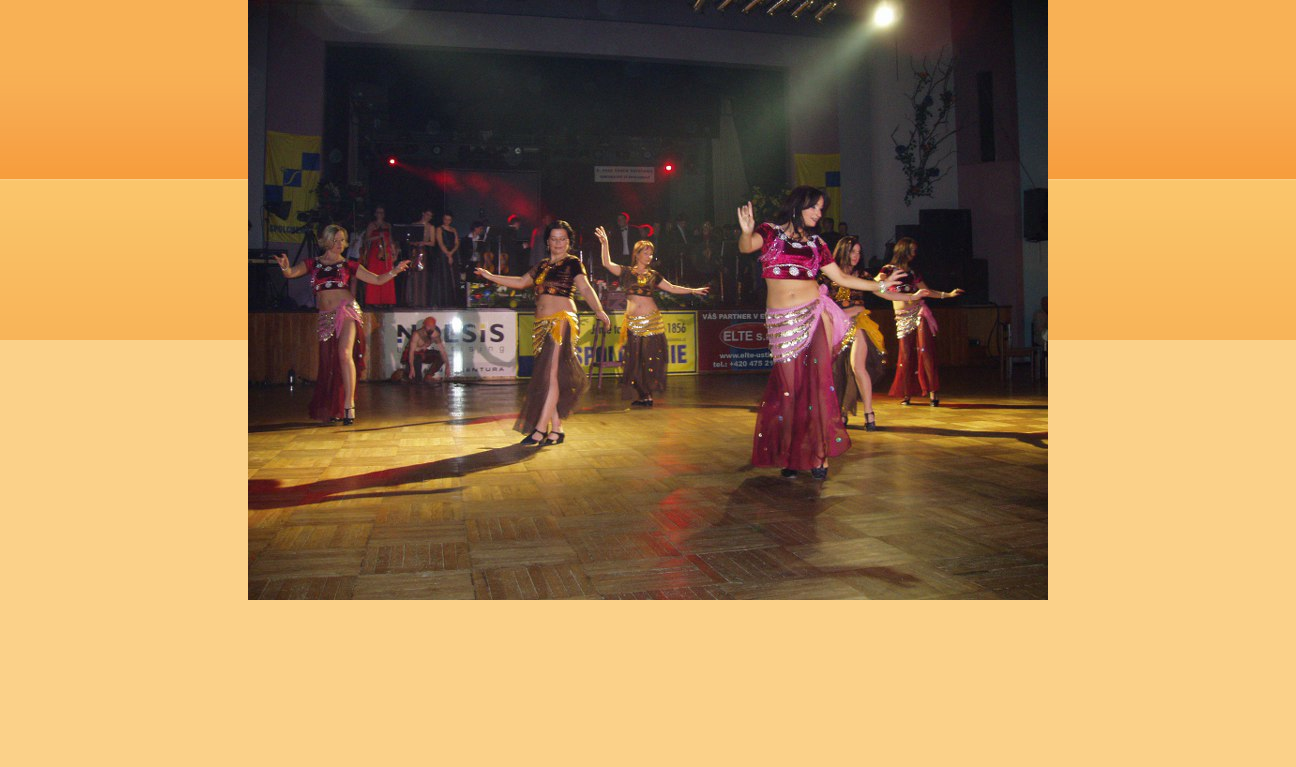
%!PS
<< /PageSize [1296 767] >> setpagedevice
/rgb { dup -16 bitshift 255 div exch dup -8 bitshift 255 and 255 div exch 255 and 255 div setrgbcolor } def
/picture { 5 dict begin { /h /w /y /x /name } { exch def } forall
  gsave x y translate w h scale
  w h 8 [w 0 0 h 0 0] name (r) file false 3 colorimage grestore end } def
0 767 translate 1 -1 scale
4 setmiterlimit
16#FBD189 rgb
0 0 1296 767 rectfill
(pic1.raw) 0 0 1296 340 picture
(pic2.raw) 248 0 800 600 picture
showpage
